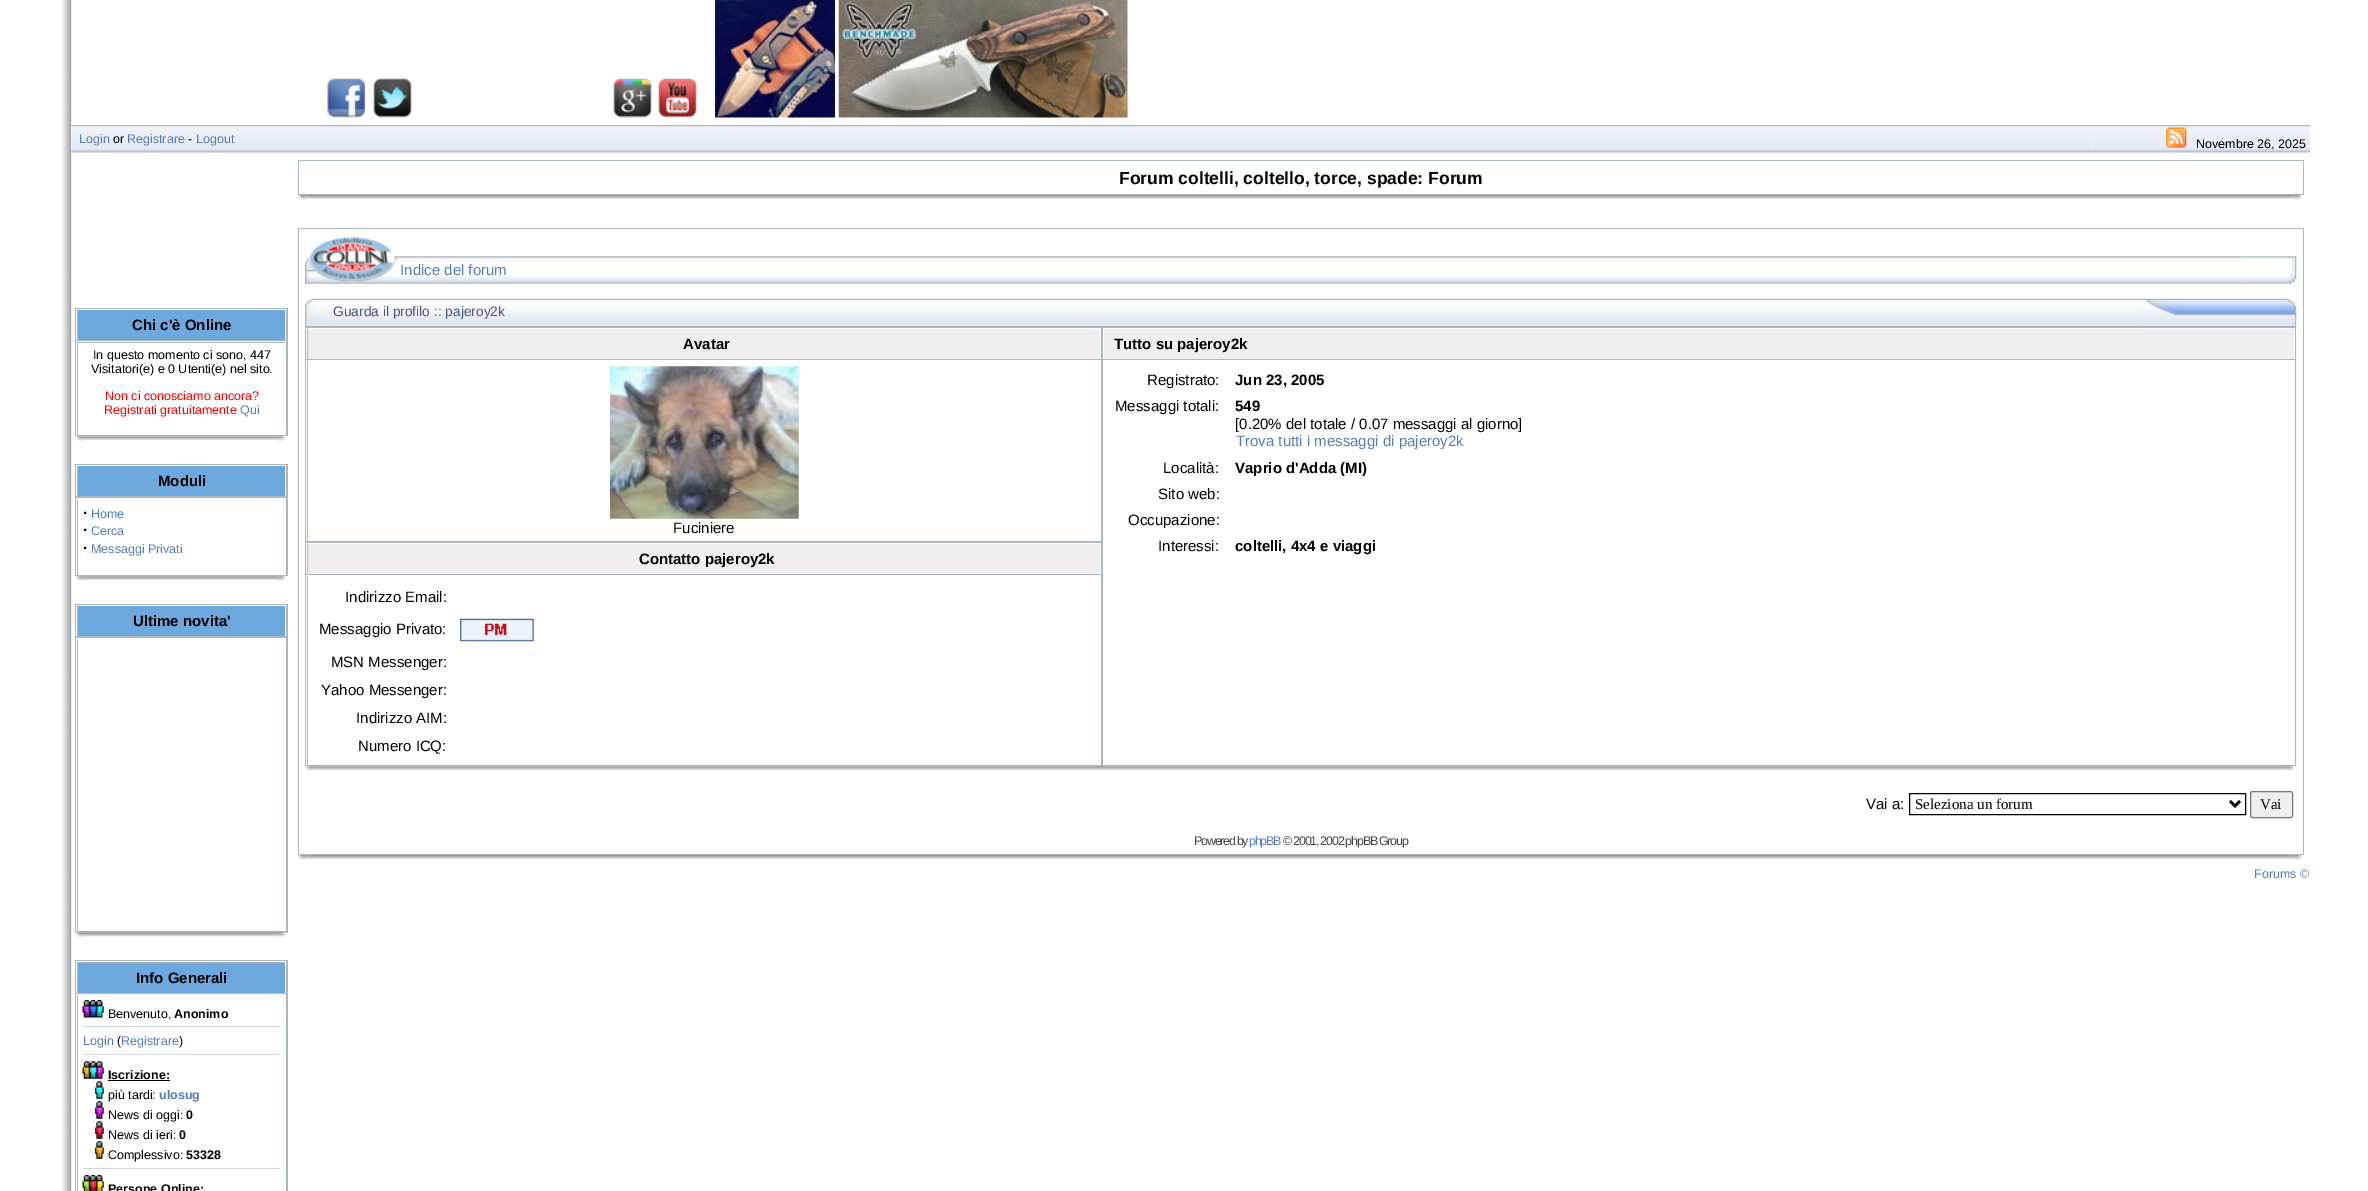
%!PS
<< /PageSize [2368 1191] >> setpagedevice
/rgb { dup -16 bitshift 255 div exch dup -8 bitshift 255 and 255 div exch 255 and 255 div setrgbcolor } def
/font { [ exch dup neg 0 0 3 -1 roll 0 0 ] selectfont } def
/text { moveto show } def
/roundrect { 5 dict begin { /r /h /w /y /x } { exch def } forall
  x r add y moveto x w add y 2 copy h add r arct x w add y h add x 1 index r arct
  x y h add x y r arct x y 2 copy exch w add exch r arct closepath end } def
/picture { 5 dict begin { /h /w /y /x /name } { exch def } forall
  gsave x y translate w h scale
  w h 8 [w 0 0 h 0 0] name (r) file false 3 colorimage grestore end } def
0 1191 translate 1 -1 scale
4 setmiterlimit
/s1 { /LiberationSans-Regular 12.5 font 16#567EB9 rgb } def
/s2 { /LiberationSans-Regular 12.5 font 16#000000 rgb } def
/s3 { /LiberationSans-Bold 15 font 16#000000 rgb } def
/s4 { /LiberationSans-Regular 12.5 font 16#FF0000 rgb } def
/s5 { /LiberationSans-Bold 12.5 font 16#000000 rgb } def
/s6 { /LiberationSans-Bold 12.5 font 16#567EB9 rgb } def
/s7 { /LiberationSans-Bold 17.5 font 16#000000 rgb } def
/s8 { /LiberationSans-Regular 15 font 16#567EB9 rgb } def
/s9 { /LiberationSans-Regular 13.75 font 16#445588 rgb } def
/s10 { /LiberationSans-Regular 15 font 16#000000 rgb } def
/s11 { /LiberationSerif-Regular 15 font 16#000000 rgb } def
16#FFFFFF rgb
0 0 2368 1191 rectfill
(pic1.raw) 61 0 11 1191 picture
(pic2.raw) 327 78 38 40 picture
(pic3.raw) 373 78 39 40 picture
(pic4.raw) 613 78 39 40 picture
(pic5.raw) 658 78 39 40 picture
(pic6.raw) 715 0 120 118 picture
(pic7.raw) 838 0 290 118 picture
71 125 1 28 rectfill
(pic8.raw) 71 125 219 28 picture
s1
(Login) 79 143 text
s2
(or) 113 143 text
s1
(Registrare) 127 143 text
s2
(-) 188 143 text
s1
(Logout) 196 143 text
(pic9.raw) 290 125 1801 28 picture
(pic8.raw) 2091 125 219 28 picture
(pic10.raw) 2166 127 21 21 picture
s2
(Novembre 26, 2025) 2196 148 text
16#A9B8C2 rgb
75 308 213 128 rectfill
16#6DA9DF rgb
78 310 207 30 rectfill
16#FFFFFF rgb
76 309 210 1 rectfill
285 309 1 31 rectfill
76 309 1 31 rectfill
s3
(Chi c'è Online) 132 330 text
16#FFFFFF rgb
78 343 207 92 rectfill
76 341 210 1 rectfill
285 341 1 94 rectfill
76 341 1 94 rectfill
s2
(In questo momento ci sono, 447) 93 359 text
(Visitatori\(e\) e 0 Utenti\(e\) nel sito.) 91 373 text
s4
(Non ci conosciamo ancora?) 105 400 text
(Registrati gratuitamente) 104 414 text
s1
(Qui) 240 414 text
(pic11.raw) 75 436 10 5 picture
(pic12.raw) 85 436 193 4 picture
(pic13.raw) 277 436 9 5 picture
16#A9B8C2 rgb
75 464 213 112 rectfill
16#6DA9DF rgb
78 466 207 30 rectfill
16#FFFFFF rgb
76 465 210 1 rectfill
285 465 1 31 rectfill
76 465 1 31 rectfill
s3
(Moduli) 158 486 text
16#FFFFFF rgb
78 499 207 76 rectfill
76 498 210 1 rectfill
285 498 1 77 rectfill
76 498 1 77 rectfill
s3
(·) 83 518 text
s1
(Home) 91 518 text
s3
(·) 83 535 text
s1
(Cerca) 91 535 text
s3
(·) 83 553 text
s1
(Messaggi Privati) 91 553 text
(pic11.raw) 75 576 10 5 picture
(pic12.raw) 85 576 193 4 picture
(pic13.raw) 277 576 9 5 picture
16#A9B8C2 rgb
75 604 213 329 rectfill
16#6DA9DF rgb
78 606 207 30 rectfill
16#FFFFFF rgb
76 605 210 1 rectfill
285 605 1 31 rectfill
76 605 1 31 rectfill
s3
(Ultime novita') 133 626 text
16#FFFFFF rgb
78 639 207 292 rectfill
76 638 210 1 rectfill
285 638 1 293 rectfill
76 638 1 293 rectfill
(pic14.raw) 75 932 10 6 picture
(pic15.raw) 85 932 193 5 picture
(pic16.raw) 277 932 10 6 picture
16#A9B8C2 rgb
75 960 213 231 rectfill
16#6DA9DF rgb
78 963 207 30 rectfill
16#FFFFFF rgb
76 961 210 1 rectfill
285 961 1 32 rectfill
76 961 1 32 rectfill
s3
(Info Generali) 136 983 text
16#FFFFFF rgb
78 995 207 196 rectfill
76 994 210 1 rectfill
285 994 1 197 rectfill
76 994 1 197 rectfill
(pic17.raw) 82 1000 22 18 picture
s2
(Benvenuto,) 108 1018 text
s5
(Anonimo) 174 1018 text
16#D1D7DC rgb
83 1026 197 1 rectfill
s1
(Login) 83 1045 text
s2
(\() 117 1045 text
s1
(Registrare) 121 1045 text
s2
(\)) 179 1045 text
16#D1D7DC rgb
83 1054 197 1 rectfill
(pic18.raw) 82 1061 22 18 picture
s5
(Iscrizione:) 108 1079 text
108 1080 62 1 rectfill
(pic19.raw) 94 1081 10 18 picture
s2
(più tardi:) 108 1099 text
s6
(ulosug) 159 1099 text
(pic20.raw) 94 1101 10 18 picture
s2
(News di oggi:) 108 1119 text
s5
(0) 186 1119 text
(pic21.raw) 94 1121 10 18 picture
s2
(News di ieri:) 108 1139 text
s5
(0) 179 1139 text
(pic22.raw) 94 1141 10 18 picture
s2
(Complessivo:) 108 1159 text
s5
(53328) 186 1159 text
16#D1D7DC rgb
83 1168 197 1 rectfill
(pic23.raw) 82 1175 22 16 picture
s5
(Persone Online:) 108 1193 text
16#A9B8C2 rgb
298 160 2006 35 rectfill
16#FFFFFF rgb
299 161 2004 33 rectfill
s7
(Forum coltelli, coltello, torce, spade: Forum) 1119 184 text
(pic24.raw) 297 195 11 5 picture
(pic25.raw) 307 195 1987 4 picture
(pic26.raw) 2293 195 10 5 picture
16#A9B8C2 rgb
298 228 2006 627 rectfill
16#FFFFFF rgb
299 229 2004 625 rectfill
(pic27.raw) 305 235 95 49 picture
(pic28.raw) 400 256 1848 28 picture
s8
(Indice del forum) 400 275 text
(pic29.raw) 2247 256 50 28 picture
(pic30.raw) 305 298 28 28 picture
(pic31.raw) 332 298 1810 28 picture
s9
(Guarda il profilo :: pajeroy2k) 333 316 text
(pic32.raw) 2141 298 156 29 picture
16#A9B8C2 rgb
305 326 1991 440 rectfill
16#EFEFEF rgb
308 329 792 30 rectfill
16#FFFFFF rgb
306 328 795 1 rectfill
1100 328 1 31 rectfill
306 328 1 31 rectfill
s3
(Avatar) 683 349 text
16#EFEFEF rgb
1104 329 1190 30 rectfill
16#FFFFFF rgb
1103 328 1192 1 rectfill
2294 328 1 31 rectfill
1103 328 1 31 rectfill
s3
(Tutto su pajeroy2k) 1114 349 text
16#FFFFFF rgb
308 361 792 180 rectfill
306 360 795 1 rectfill
1100 360 1 181 rectfill
306 360 1 181 rectfill
(pic33.raw) 610 366 189 153 picture
s10
(Fuciniere) 673 533 text
16#FFFFFF rgb
1104 361 1190 404 rectfill
1103 360 1192 1 rectfill
2294 360 1 405 rectfill
1103 360 1 405 rectfill
s10
(Registrato:) 1147 385 text
s3
(Jun 23, 2005) 1235 385 text
s10
(Messaggi totali:) 1115 411 text
s3
(549) 1235 411 text
s10
([0.20% del totale / 0.07 messaggi al giorno]) 1235 429 text
s8
(Trova tutti i messaggi di pajeroy2k) 1236 446 text
s10
(Località:) 1163 473 text
s3
(Vaprio d'Adda \(MI\)) 1235 473 text
s10
(Sito web:) 1158 499 text
(Occupazione:) 1128 525 text
(Interessi:) 1158 551 text
s3
(coltelli, 4x4 e viaggi) 1235 551 text
16#EFEFEF rgb
308 544 792 30 rectfill
16#FFFFFF rgb
306 543 795 1 rectfill
1100 543 1 31 rectfill
306 543 1 31 rectfill
s3
(Contatto pajeroy2k) 639 564 text
16#FFFFFF rgb
308 576 792 189 rectfill
306 575 795 1 rectfill
1100 575 1 190 rectfill
306 575 1 190 rectfill
s10
(Indirizzo Email:) 345 602 text
(Messaggio Privato:) 319 634 text
(pic34.raw) 460 618 74 24 picture
(MSN Messenger:) 331 667 text
(Yahoo Messenger:) 321 695 text
(Indirizzo AIM:) 356 723 text
(Numero ICQ:) 358 751 text
(pic11.raw) 305 766 10 5 picture
(pic35.raw) 315 766 1972 4 picture
(pic36.raw) 2286 766 9 5 picture
(Vai a:) 1866 809 text
1909.5 793.5 336 21 rectstroke
2.5 setlinewidth
2230 801 moveto 2235 806 lineto 2240 801 lineto stroke
s11
(Seleziona un forum) 1915 809 text
16#EFEFEF rgb
2250.5 791.5 42 26 2 roundrect gsave fill grestore
16#767676 rgb
1 setlinewidth
stroke
s11
(Vai) 2260 809 text
/LiberationSans-Regular 12.5 font
16#444444 rgb
1194 845 moveto -1.25 0 (Powered by) ashow
16#567EB9 rgb
1249 845 moveto -1.25 0 (phpBB) ashow
16#444444 rgb
1283 845 moveto -1.25 0 (© 2001, 2002 phpBB Group) ashow
(pic24.raw) 297 855 11 5 picture
(pic37.raw) 307 855 1987 4 picture
(pic26.raw) 2293 855 10 5 picture
s1
(Forums ©) 2254 878 text
showpage
